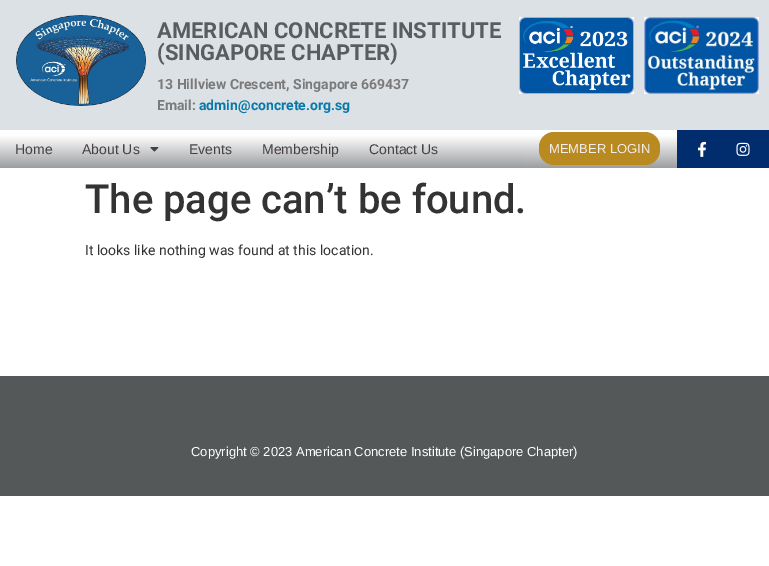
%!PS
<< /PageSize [769 566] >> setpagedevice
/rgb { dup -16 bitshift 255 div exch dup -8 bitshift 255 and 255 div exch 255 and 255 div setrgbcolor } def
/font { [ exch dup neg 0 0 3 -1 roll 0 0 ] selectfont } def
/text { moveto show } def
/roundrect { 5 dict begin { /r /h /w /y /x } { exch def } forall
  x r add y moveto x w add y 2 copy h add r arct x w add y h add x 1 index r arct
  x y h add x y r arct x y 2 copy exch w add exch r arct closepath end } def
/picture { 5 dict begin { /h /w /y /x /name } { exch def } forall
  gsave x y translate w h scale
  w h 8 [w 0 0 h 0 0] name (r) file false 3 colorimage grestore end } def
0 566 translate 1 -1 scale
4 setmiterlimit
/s1 { /Roboto-Bold 22 font 16#5A5D5F rgb } def
/s2 { /Roboto-Bold 14 font 16#7A7A7A rgb } def
/s3 { /Roboto-Bold 14 font 16#0679AA rgb } def
/s4 { /LiberationSans-Regular 14 font 16#474141 rgb } def
/s5 { /LiberationSans-Regular 13 font 16#F2EDED rgb } def
/s6 { /Roboto-Medium 40 font 16#333333 rgb } def
/s7 { /Roboto-Regular 14 font 16#333333 rgb } def
/s8 { /LiberationSans-Regular 13 font 16#FFFFFF rgb } def
16#FFFFFF rgb
0 0 769 566 rectfill
16#DCE1E5 rgb
0 0 769 130 rectfill
(pic1.raw) 16 15 130 91 picture
s1
(AMERICAN CONCRETE INSTITUTE) 157 38 text
(\(SINGAPORE CHAPTER\)) 157 60 text
s2
(13 Hillview Crescent, Singapore 669437) 157 89 text
(Email:) 157 110 text
s3
(admin@concrete.org.sg) 199 110 text
(pic2.raw) 519 17 115 77 picture
(pic3.raw) 644 17 115 77 picture
16#012C6D rgb
677 130 92 38 rectfill
gsave 0 136 moveto 523 136 lineto 523 168 lineto 0 168 lineto closepath clip newpath
<< /ShadingType 2 /ColorSpace /DeviceRGB /Coords [262 130 262 168] /Extend [true true] /Function << /FunctionType 3 /Domain [0 1] /Functions [<< /FunctionType 2 /Domain [0 1] /C0 [1 1 1] /C1 [1 1 1] /N 1 >> << /FunctionType 2 /Domain [0 1] /C0 [1 1 1] /C1 [0.616 0.62 0.627] /N 1 >> << /FunctionType 2 /Domain [0 1] /C0 [0.616 0.62 0.627] /C1 [0.616 0.62 0.627] /N 1 >>] /Bounds [0.14 0.99] /Encode [0 1 0 1 0 1] >> >> shfill grestore
s4
(Home) 15 154 text
(About Us) 82 154 text
(pic4.raw) 150 147 9 5 picture
(Events) 189 154 text
(Membership) 262 154 text
(Contact Us) 369 154 text
gsave 523 136 moveto 677 136 lineto 677 168 lineto 523 168 lineto closepath clip newpath
<< /ShadingType 2 /ColorSpace /DeviceRGB /Coords [600 130 600 168] /Extend [true true] /Function << /FunctionType 3 /Domain [0 1] /Functions [<< /FunctionType 2 /Domain [0 1] /C0 [1 1 1] /C1 [1 1 1] /N 1 >> << /FunctionType 2 /Domain [0 1] /C0 [1 1 1] /C1 [0.616 0.62 0.627] /N 1 >>] /Bounds [0.14] /Encode [0 1 0 1] >> >> shfill grestore
16#B98A20 rgb
539 132 121 33 15 roundrect fill
s5
(MEMBER LOGIN) 549 153 text
(pic5.raw) 698 141 8 16 picture
(pic6.raw) 736 142 14 14 picture
s6
(The page can’t be found.) 85 213 text
s7
(It looks like nothing was found at this location.) 85 255 text
16#545859 rgb
0 376 769 120 rectfill
s8
(Copyright © 2023 American Concrete Institute \(Singapore Chapter\)) 191 456 text
showpage
